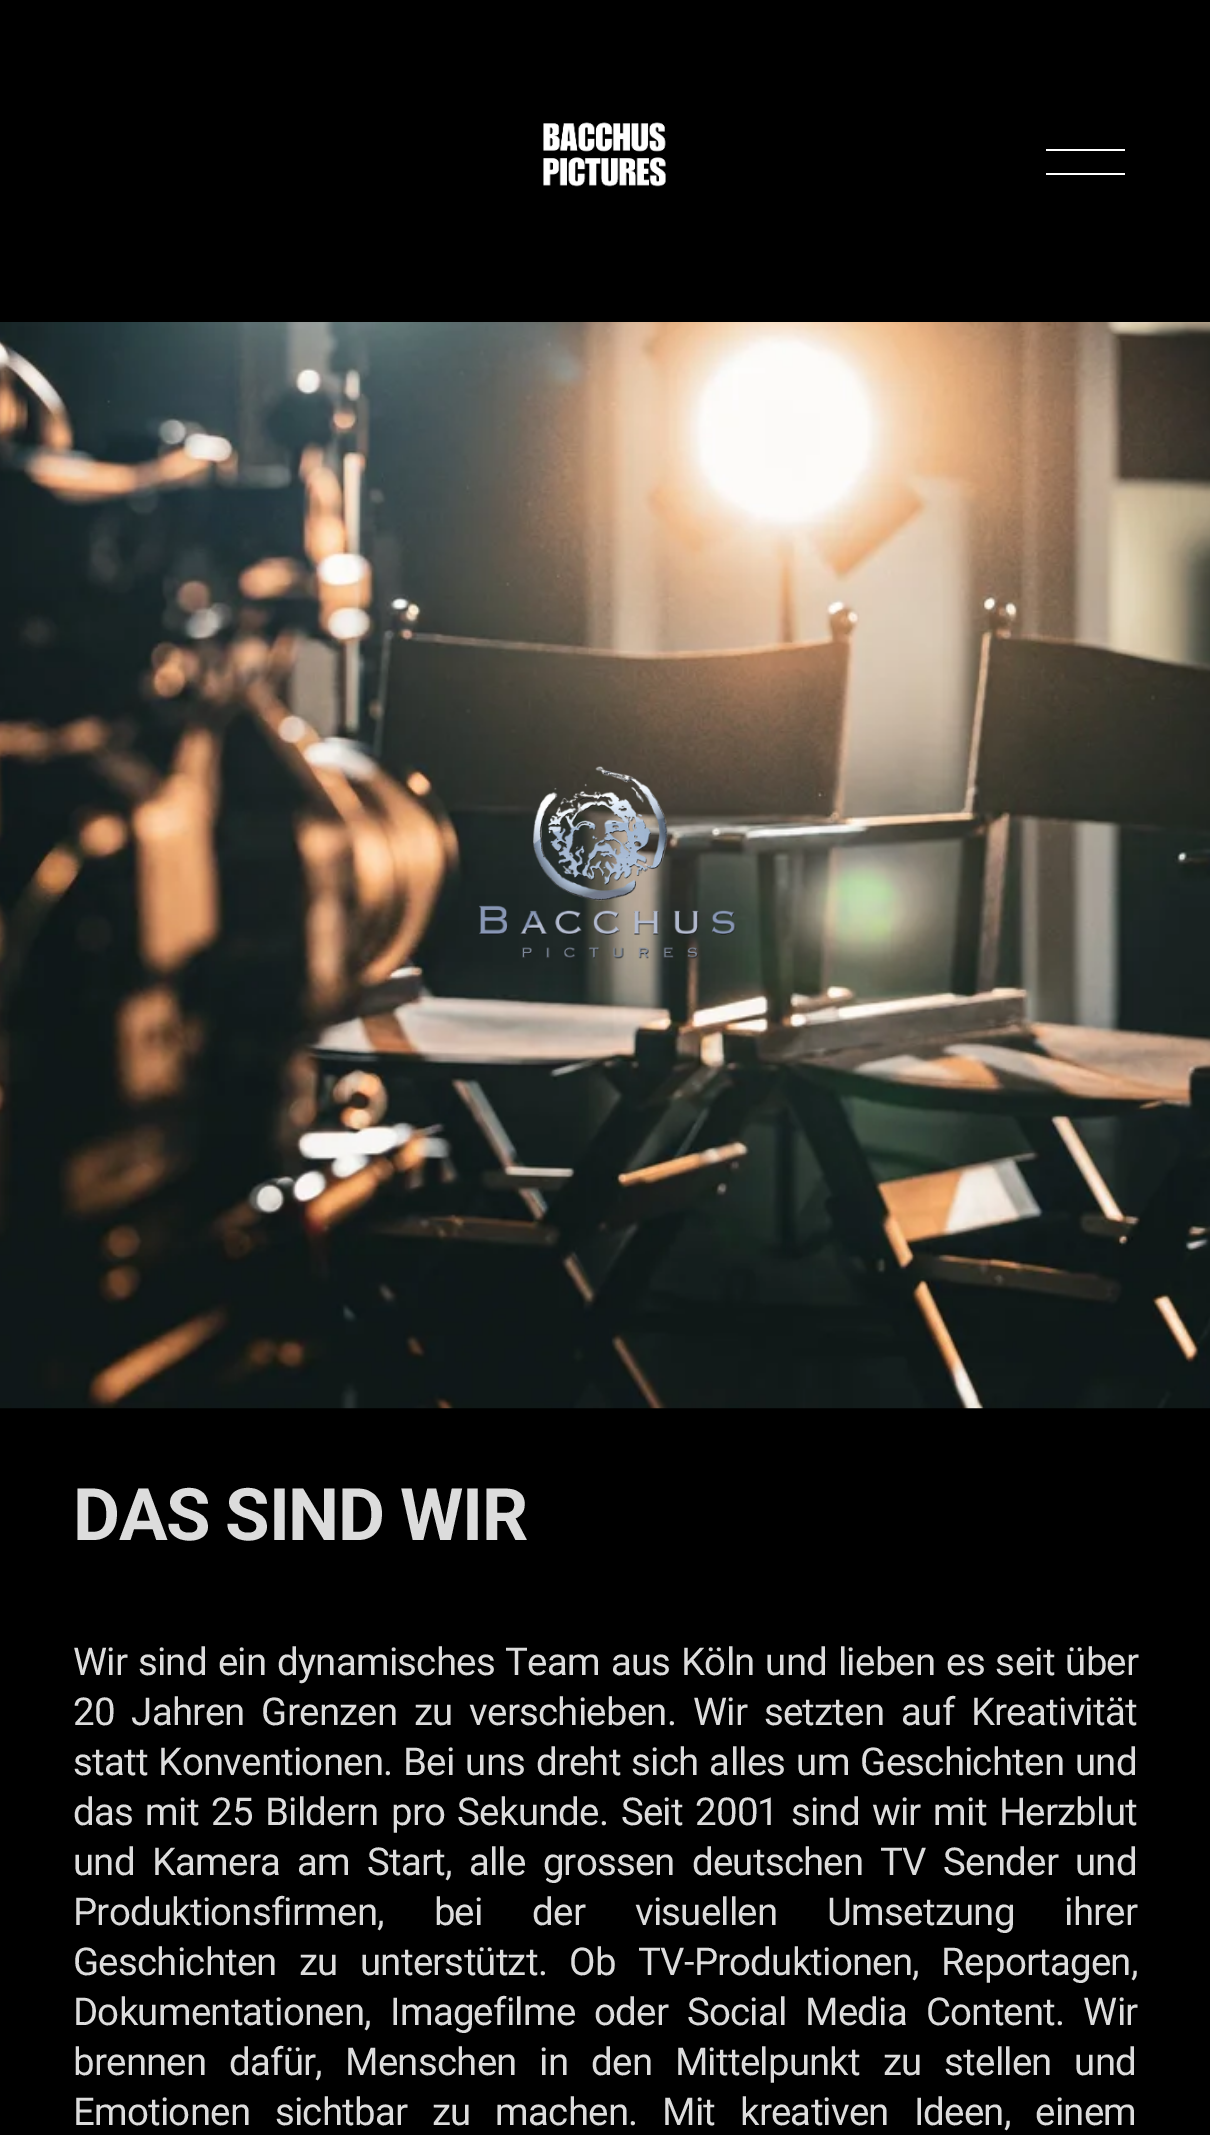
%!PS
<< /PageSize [1210 2135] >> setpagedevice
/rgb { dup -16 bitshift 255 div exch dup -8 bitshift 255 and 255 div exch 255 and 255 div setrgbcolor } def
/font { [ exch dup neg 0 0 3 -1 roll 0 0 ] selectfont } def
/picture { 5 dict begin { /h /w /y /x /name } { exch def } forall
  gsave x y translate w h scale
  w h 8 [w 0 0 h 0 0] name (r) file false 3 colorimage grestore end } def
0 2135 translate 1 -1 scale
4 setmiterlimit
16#000000 rgb
0 0 1210 2135 rectfill
(pic1.raw) 543 122 123 65 picture
16#FFFFFF rgb
1046 149 79 2 rectfill
1046 173 79 2 rectfill
(pic2.raw) 0 322 1210 1087 picture
(pic3.raw) 479 766 257 193 picture
/Roboto-Bold 72.5 font
16#DCDCDC rgb
73 1540 moveto -1.5 0 (DAS SIND WIR) ashow
/Roboto-Regular 38.4 font
73 1675 moveto 2 0 32 -0.77 0 (Wir sind ein dynamisches Team aus Köln und lieben es seit über) awidthshow
73 1725 moveto 8 0 32 -0.77 0 (20 Jahren Grenzen zu verschieben. Wir setzten auf Kreativität) awidthshow
73 1775 moveto 2 0 32 -0.77 0 (statt Konventionen. Bei uns dreht sich alles um Geschichten und) awidthshow
73 1825 moveto 3.6 0 32 -0.77 0 (das mit 25 Bildern pro Sekunde. Seit 2001 sind wir mit Herzblut) awidthshow
73 1875 moveto 8.25 0 32 -0.77 0 (und Kamera am Start, alle grossen deutschen TV Sender und) awidthshow
73 1925 moveto 41 0 32 -0.77 0 (Produktionsfirmen, bei der visuellen Umsetzung ihrer) awidthshow
73 1975 moveto 13.5 0 32 -0.77 0 (Geschichten zu unterstützt. Ob TV-Produktionen, Reportagen,) awidthshow
73 2025 moveto 10 0 32 -0.77 0 (Dokumentationen, Imagefilme oder Social Media Content. Wir) awidthshow
73 2075 moveto 14 0 32 -0.77 0 (brennen dafür, Menschen in den Mittelpunkt zu stellen und) awidthshow
73 2125 moveto 16 0 32 -0.77 0 (Emotionen sichtbar zu machen. Mit kreativen Ideen, einem) awidthshow
showpage
